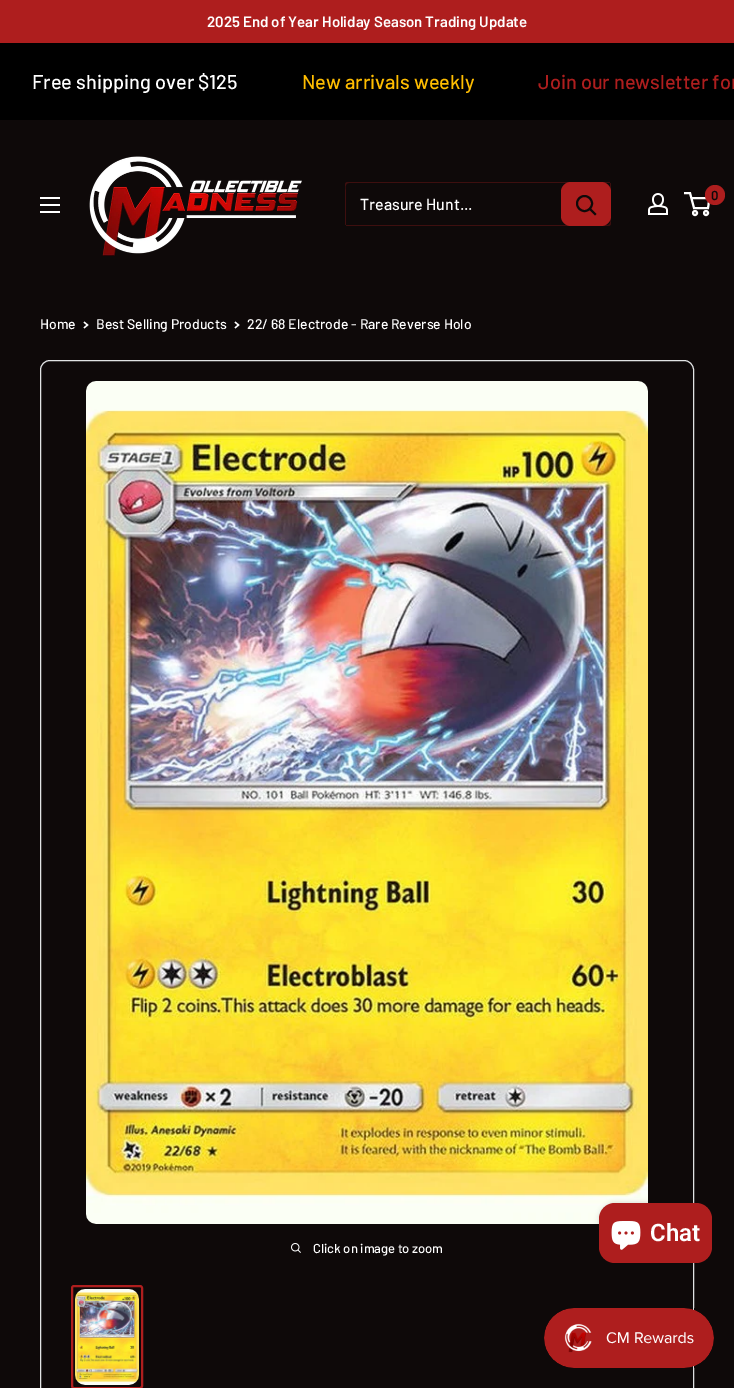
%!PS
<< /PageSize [734 1388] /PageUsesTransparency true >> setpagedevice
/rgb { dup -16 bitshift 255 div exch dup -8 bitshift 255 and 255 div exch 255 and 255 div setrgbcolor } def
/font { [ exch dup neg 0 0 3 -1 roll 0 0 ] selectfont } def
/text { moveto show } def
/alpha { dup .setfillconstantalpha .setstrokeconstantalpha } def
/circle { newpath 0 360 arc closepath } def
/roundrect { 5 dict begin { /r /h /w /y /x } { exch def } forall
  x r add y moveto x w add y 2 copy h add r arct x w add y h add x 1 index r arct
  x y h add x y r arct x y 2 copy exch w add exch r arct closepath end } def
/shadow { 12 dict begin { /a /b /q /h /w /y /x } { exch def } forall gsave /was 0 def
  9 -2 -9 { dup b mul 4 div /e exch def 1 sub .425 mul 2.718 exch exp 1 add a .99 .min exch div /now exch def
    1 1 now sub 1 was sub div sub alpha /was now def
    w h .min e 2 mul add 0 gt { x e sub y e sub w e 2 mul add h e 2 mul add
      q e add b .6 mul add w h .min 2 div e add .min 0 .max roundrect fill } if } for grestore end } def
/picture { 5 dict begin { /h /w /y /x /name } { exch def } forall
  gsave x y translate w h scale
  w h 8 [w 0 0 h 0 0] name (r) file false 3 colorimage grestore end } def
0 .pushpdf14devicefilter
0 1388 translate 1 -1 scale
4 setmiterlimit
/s1 { /Barlow-SemiBold 15 font 16#FFFFFF rgb } def
/s2 { /Barlow-Medium 20 font 16#FFFFFF rgb } def
/s3 { /Barlow-Medium 20 font 16#FFBD00 rgb } def
/s4 { /Barlow-Medium 20 font 16#AE1E1E rgb } def
/s5 { /Barlow-SemiBold 13 font 16#0E0909 rgb } def
/s6 { /Barlow-Medium 16 font 16#FFFFFF rgb } def
/s7 { /Barlow-Medium 14 font 16#FFFFFF rgb } def
/s8 { /Barlow-Medium 13 font 16#FFFFFF rgb } def
/s9 { /Roboto-SemiBold 24 font 16#FFFFFF rgb } def
16#0E0909 rgb
0 0 734 1388 rectfill
16#AE1E1E rgb
0 0 734 43 rectfill
s1
(2025 End of Year Holiday Season Trading Update) 207 27 text
16#000000 rgb
0 43 734 77 rectfill
s2
(Free shipping over $125) 32 89 text
s3
(New arrivals weekly) 302 89 text
s4
(Join our newsletter for) 538 89 text
(pic1.raw) 89 156 213 100 picture
(pic2.raw) 648 193 20 22 picture
16#FFFFFF rgb
2 setlinewidth
695 213 2 circle stroke
706 213 2 circle stroke
691.5 198 moveto 709.5 198 lineto 708 208 lineto 694 208 lineto 690 193 lineto 684 193 lineto stroke
16#AE1E1E rgb
715 195 10 circle fill
s5
(0) 711 200 text
(pic3.raw) 40 197 20 16 picture
16#3E0F0F rgb
346 225 moveto 346 226 347 226 348 226 curveto 608 226 lineto 610 226 611 225 611 223 curveto 611 185 lineto 611 184 611 183 610 183 curveto 610 216 lineto 610 218 612 225 607 225 curveto closepath fill
349 183 moveto 610 183 lineto 610 182 609 182 608 182 curveto 348 182 lineto 346 182 345 183 345 185 curveto 345 223 lineto 345 224 345 225 346 225 curveto 346 192 lineto 346 190 344 183 349 183 curveto closepath fill
s6
(Treasure Hunt...) 360 210 text
16#AE1E1E rgb
561 182 50 44 10 roundrect fill
16#0E0909 rgb
2 setlinecap
595 214 moveto 590 209 lineto stroke
0 setlinecap
584.5 203.5 7.5 circle stroke
s7
(Home) 40 329 text
1.3 setlinewidth
2 setlinecap
84.5 322.5 moveto 87.5 325 lineto 84.5 327.5 lineto stroke
(Best Selling Products) 96 329 text
235.5 322.5 moveto 238.5 325 lineto 235.5 327.5 lineto stroke
(22/ 68 Electrode - Rare Reverse Holo) 247 329 text
16#E1E3E4 rgb
1 setlinewidth
0 setlinecap
40.5 360.5 653 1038 9.5 roundrect stroke
(pic4.raw) 86 381 562 843 picture
(pic5.raw) 291 1243 10 10 picture
s8
(Click on image to zoom) 313 1253 text
16#AE1E1E rgb
2 setlinewidth
72 1286 70 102 2 roundrect stroke
(pic6.raw) 75 1289 64 96 picture
16#000000 rgb
599 1203 113 60 16 2.5 0.15 shadow
16#AE1E1E rgb
599 1203 113 60 16 roundrect fill
(pic7.raw) 611 1221 30 29 picture
s9
(Chat) 650 1241 text
16#000000 rgb
544 1308 170 60 30 12.5 0.05 shadow
(pic8.raw) 544 1308 170 60 picture
.poppdf14devicefilter showpage
